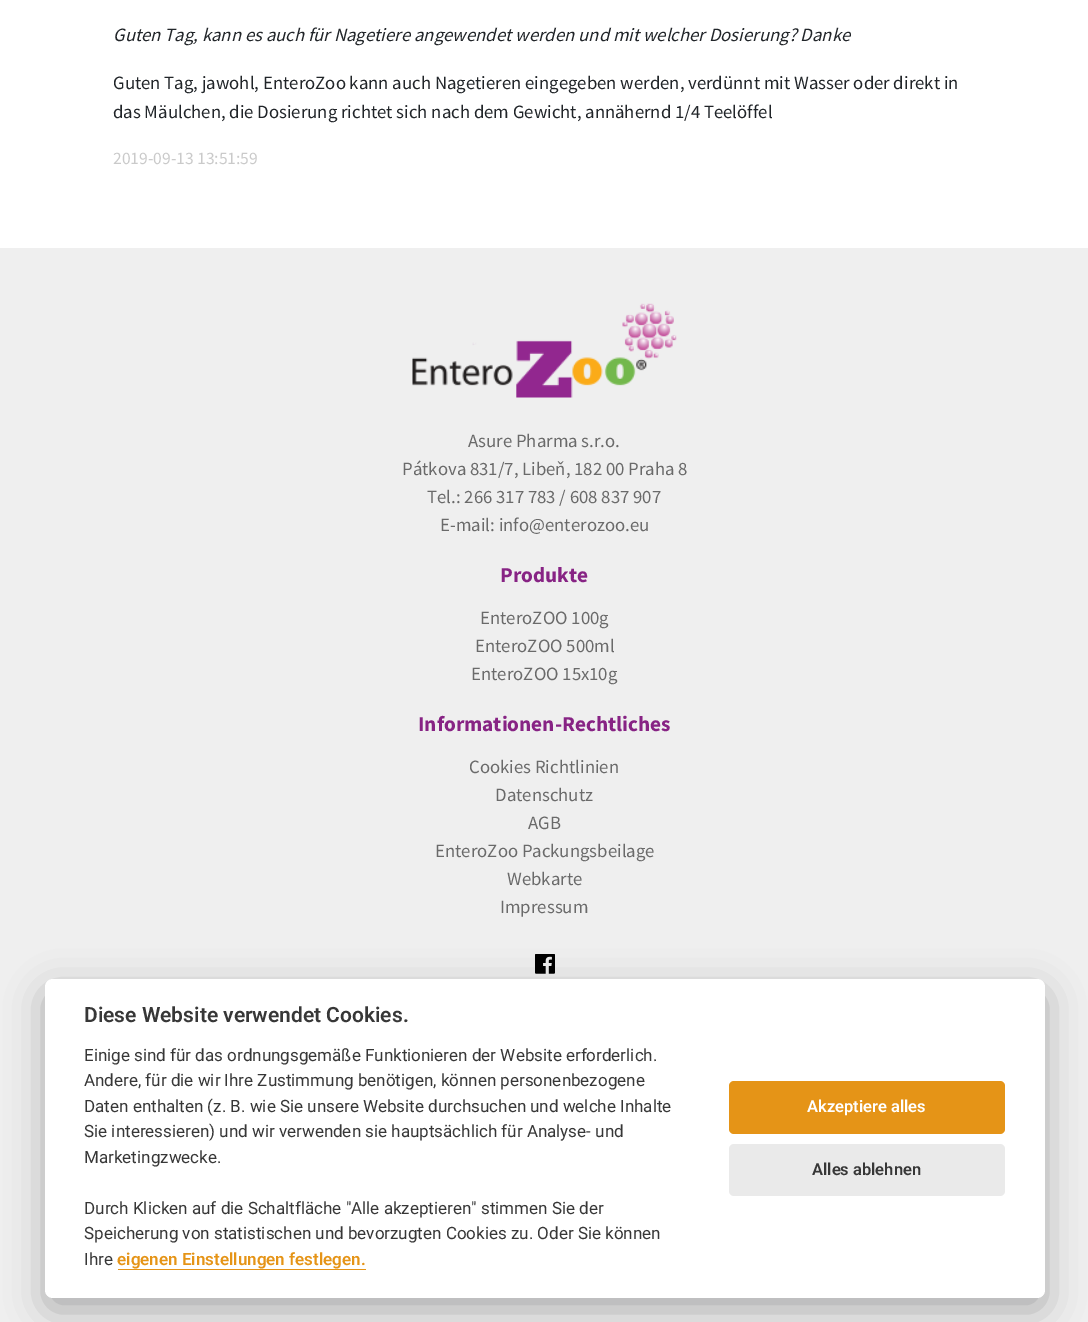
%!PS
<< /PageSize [1088 1322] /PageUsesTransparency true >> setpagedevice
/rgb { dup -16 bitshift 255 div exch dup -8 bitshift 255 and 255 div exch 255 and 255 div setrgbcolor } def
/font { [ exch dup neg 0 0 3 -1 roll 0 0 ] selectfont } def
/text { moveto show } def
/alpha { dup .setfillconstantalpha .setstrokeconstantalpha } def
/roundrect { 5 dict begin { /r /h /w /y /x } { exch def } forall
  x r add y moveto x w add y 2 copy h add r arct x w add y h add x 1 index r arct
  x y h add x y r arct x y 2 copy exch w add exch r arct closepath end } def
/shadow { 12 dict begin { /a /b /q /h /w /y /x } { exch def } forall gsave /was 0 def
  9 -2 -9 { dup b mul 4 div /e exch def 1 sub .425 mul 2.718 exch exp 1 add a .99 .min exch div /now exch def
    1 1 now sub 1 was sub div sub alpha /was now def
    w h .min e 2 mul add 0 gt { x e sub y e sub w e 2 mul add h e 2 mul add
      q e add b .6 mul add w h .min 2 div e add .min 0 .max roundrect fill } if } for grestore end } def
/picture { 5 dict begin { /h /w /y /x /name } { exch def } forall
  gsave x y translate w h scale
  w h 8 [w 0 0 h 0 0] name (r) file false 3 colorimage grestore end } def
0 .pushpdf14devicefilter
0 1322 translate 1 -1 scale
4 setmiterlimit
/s1 { /SourceSansPro-Italic 18.75 font 16#212529 rgb } def
/s2 { /SourceSansPro-Regular 18.75 font 16#212529 rgb } def
/s3 { /SourceSansPro-Regular 17.5 font 16#CACACA rgb } def
/s4 { /SourceSansPro-Regular 18.75 font 16#6A6A6A rgb } def
/s5 { /SourceSansPro-Bold 21.25 font 16#872384 rgb } def
/s6 { /Roboto-SemiBold 21 font 16#373737 rgb } def
/s7 { /Roboto-Regular 17 font 16#373737 rgb } def
/s8 { /Roboto-SemiBold 17 font 16#E59417 rgb } def
/s9 { /Roboto-SemiBold 16.5 font 16#FFFFFF rgb } def
/s10 { /Roboto-SemiBold 16.5 font 16#373737 rgb } def
16#FFFFFF rgb
0 0 1088 1322 rectfill
s1
(Guten Tag, kann es auch für Nagetiere angewendet werden und mit welcher Dosierung? Danke) 113 41 text
s2
(Guten Tag, jawohl, EnteroZoo kann auch Nagetieren eingegeben werden, verdünnt mit Wasser oder direkt in) 113 89 text
(das Mäulchen, die Dosierung richtet sich nach dem Gewicht, annähernd 1/4 Teelöffel) 113 118 text
s3
(2019-09-13 13:51:59) 113 164 text
16#EFEFEF rgb
0 248 1088 1074 rectfill
(pic1.raw) 412 303 265 95 picture
s4
(Asure Pharma s.r.o.) 468 447 text
(Pátkova 831/7, Libeň, 182 00 Praha 8) 402 475 text
(Tel.: 266 317 783 / 608 837 907) 427 503 text
(E-mail: info@enterozoo.eu) 440 531 text
s5
(Produkte) 500 582 text
s4
(EnteroZOO 100g) 480 624 text
(EnteroZOO 500ml) 475 652 text
(EnteroZOO 15x10g) 471 680 text
s5
(Informationen-Rechtliches) 418 731 text
s4
(Cookies Richtlinien) 469 773 text
(Datenschutz) 495 801 text
(AGB) 528 829 text
(EnteroZoo Packungsbeilage) 435 857 text
(Webkarte) 507 885 text
(Impressum) 500 913 text
(pic2.raw) 535 954 20 20 picture
16#020203 rgb
45 991 1000 319 8 19 0.28 shadow
16#FFFFFF rgb
45 979 1000 319 8 roundrect fill
s6
(Diese Website verwendet Cookies.) 84 1022 text
s7
(Einige sind für das ordnungsgemäße Funktionieren der Website erforderlich.) 84 1061 text
(Andere, für die wir Ihre Zustimmung benötigen, können personenbezogene) 84 1086 text
(Daten enthalten \(z. B. wie Sie unsere Website durchsuchen und welche Inhalte) 84 1112 text
(Sie interessieren\) und wir verwenden sie hauptsächlich für Analyse- und) 84 1137 text
(Marketingzwecke.) 84 1163 text
(Durch Klicken auf die Schaltfläche "Alle akzeptieren" stimmen Sie der) 84 1214 text
(Speicherung von statistischen und bevorzugten Cookies zu. Oder Sie können) 84 1239 text
(Ihre) 84 1265 text
s8
(eigenen Einstellungen festlegen.) 117 1265 text
118 1269 248 1 rectfill
729 1081 276 53 5 roundrect fill
s9
(Akzeptiere alles) 807 1112 text
16#EAEAEA rgb
729 1144 276 52 5 roundrect fill
s10
(Alles ablehnen) 812 1175 text
.poppdf14devicefilter showpage
